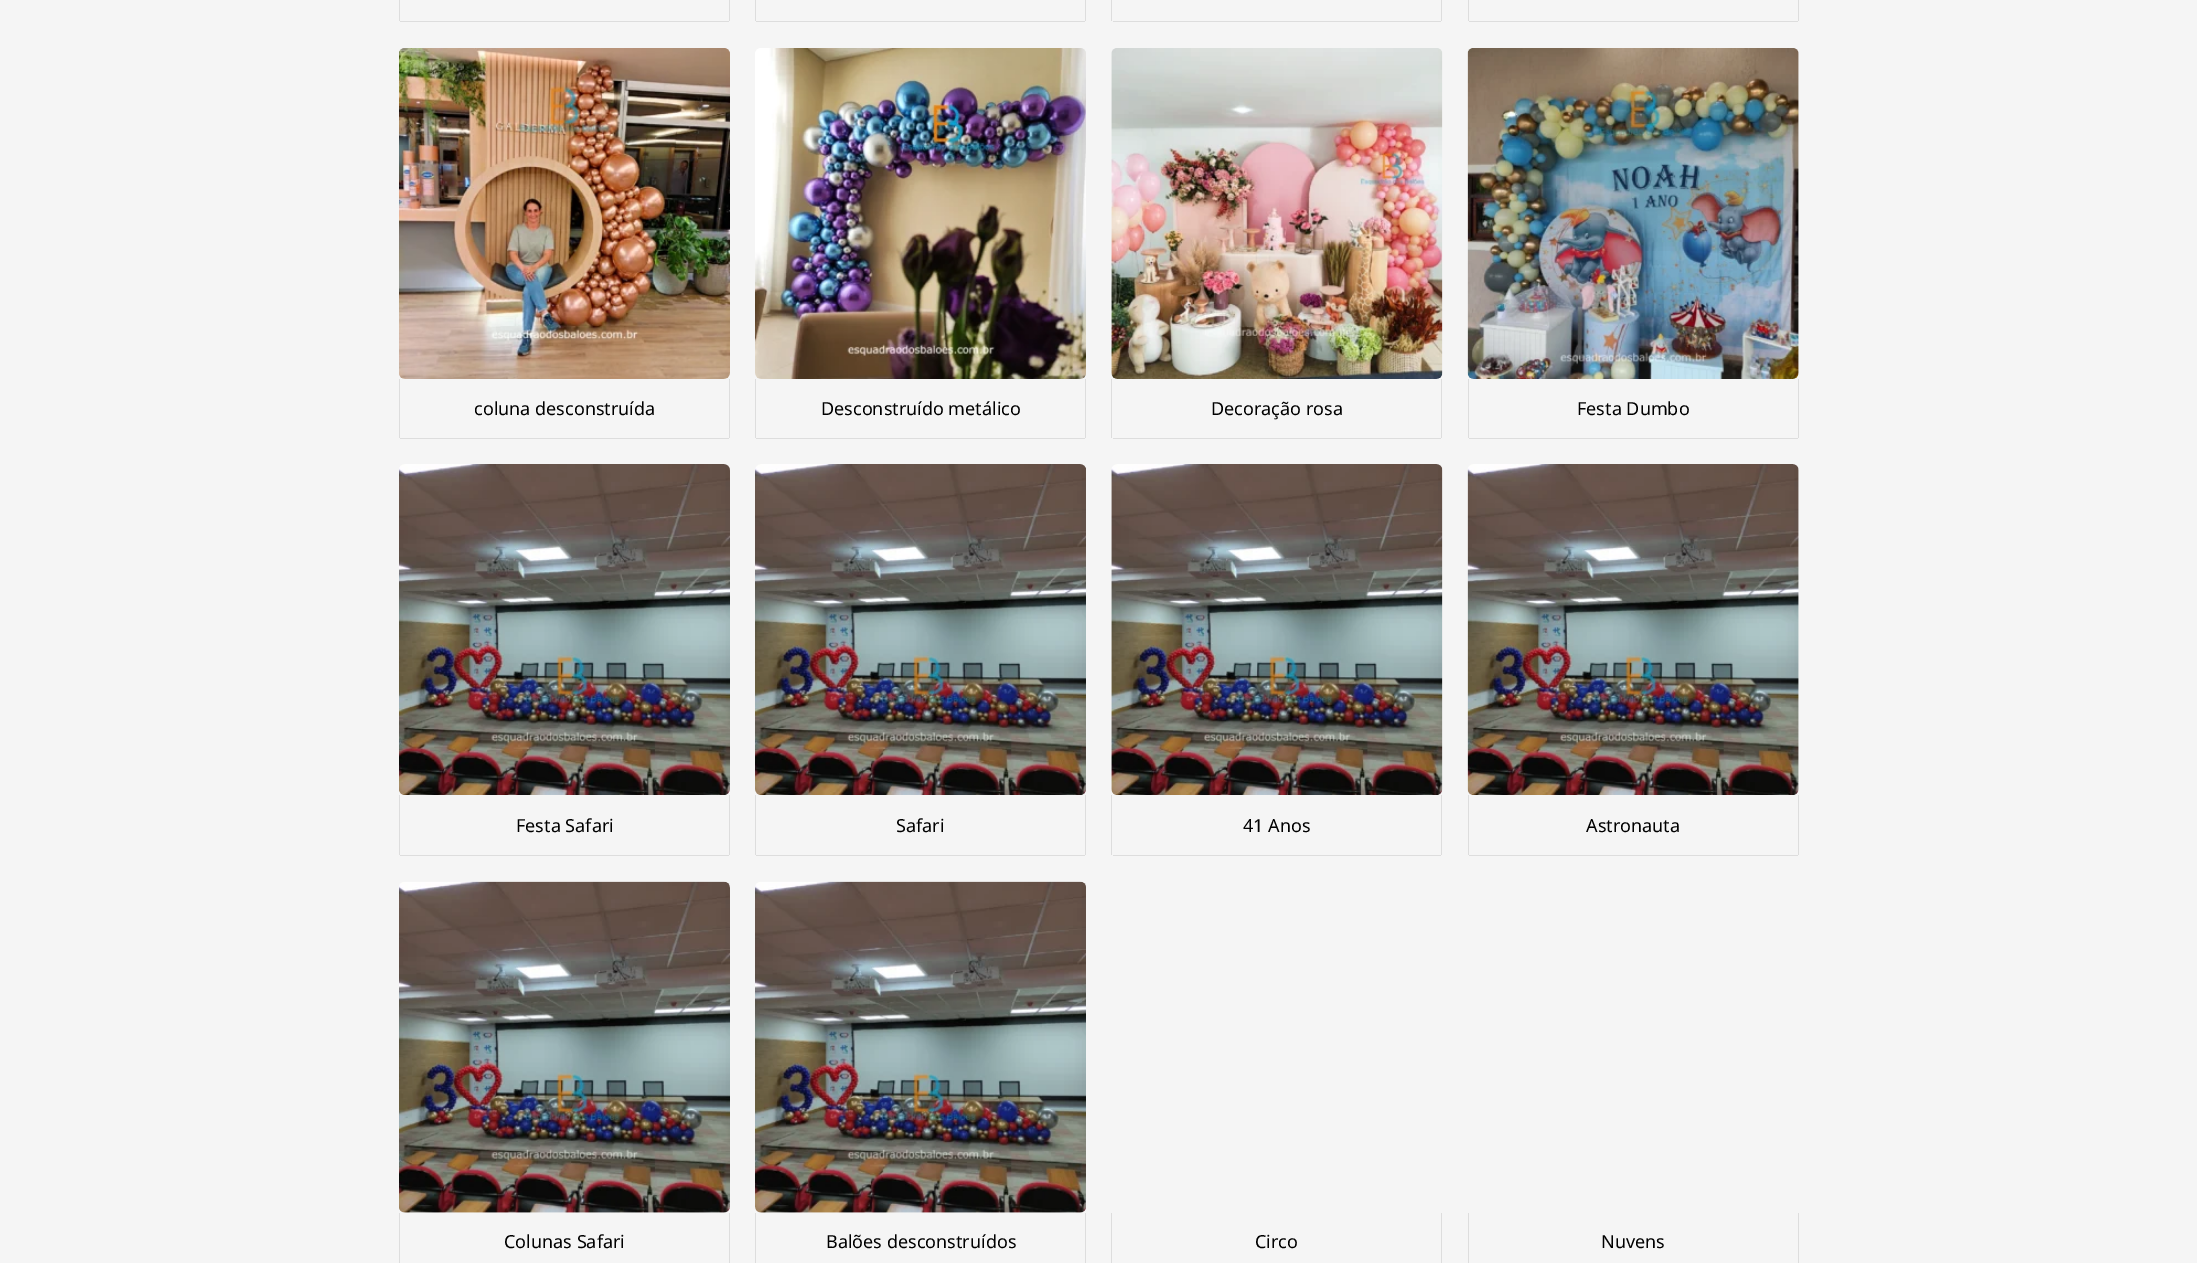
%!PS
<< /PageSize [2197 1263] >> setpagedevice
/rgb { dup -16 bitshift 255 div exch dup -8 bitshift 255 and 255 div exch 255 and 255 div setrgbcolor } def
/font { [ exch dup neg 0 0 3 -1 roll 0 0 ] selectfont } def
/text { moveto show } def
/picture { 5 dict begin { /h /w /y /x /name } { exch def } forall
  gsave x y translate w h scale
  w h 8 [w 0 0 h 0 0] name (r) file false 3 colorimage grestore end } def
0 1263 translate 1 -1 scale
4 setmiterlimit
/s1 { /NotoSans-Regular 18 font 16#000000 rgb } def
16#F5F5F5 rgb
0 0 2197 1263 rectfill
16#DDDDDD rgb
729 0 1 21 rectfill
400 21 329 1 rectfill
399 0 1 21 rectfill
1085 0 1 21 rectfill
756 21 329 1 rectfill
755 0 1 21 rectfill
1441 0 1 21 rectfill
1113 21 328 1 rectfill
1111 0 1 21 rectfill
1798 0 1 21 rectfill
1469 21 329 1 rectfill
1468 0 1 21 rectfill
(pic1.raw) 399 48 331 331 picture
729 379 1 59 rectfill
400 438 329 1 rectfill
399 379 1 59 rectfill
s1
(coluna desconstruída) 474 415 text
(pic2.raw) 755 48 331 331 picture
16#DDDDDD rgb
1085 379 1 59 rectfill
756 438 329 1 rectfill
755 379 1 59 rectfill
s1
(Desconstruído metálico) 821 415 text
(pic3.raw) 1111 48 332 331 picture
16#DDDDDD rgb
1441 379 1 59 rectfill
1113 438 328 1 rectfill
1111 379 1 59 rectfill
s1
(Decoração rosa) 1211 415 text
(pic4.raw) 1467 48 332 331 picture
16#DDDDDD rgb
1798 379 1 59 rectfill
1469 438 329 1 rectfill
1468 379 1 59 rectfill
s1
(Festa Dumbo) 1577 415 text
(pic5.raw) 399 464 331 331 picture
16#DDDDDD rgb
729 795 1 60 rectfill
400 855 329 1 rectfill
399 795 1 60 rectfill
s1
(Festa Safari) 516 832 text
(pic6.raw) 755 464 331 331 picture
16#DDDDDD rgb
1085 795 1 60 rectfill
756 855 329 1 rectfill
755 795 1 60 rectfill
s1
(Safari) 896 832 text
(pic7.raw) 1111 464 332 331 picture
16#DDDDDD rgb
1441 795 1 60 rectfill
1113 855 328 1 rectfill
1111 795 1 60 rectfill
s1
(41 Anos) 1243 832 text
(pic8.raw) 1467 464 332 331 picture
16#DDDDDD rgb
1798 795 1 60 rectfill
1469 855 329 1 rectfill
1468 795 1 60 rectfill
s1
(Astronauta) 1586 832 text
(pic9.raw) 399 881 331 332 picture
16#DDDDDD rgb
729 1213 1 50 rectfill
399 1213 1 50 rectfill
s1
(Colunas Safari) 504 1248 text
(pic10.raw) 755 881 331 332 picture
16#DDDDDD rgb
1085 1213 1 50 rectfill
755 1213 1 50 rectfill
s1
(Balões desconstruídos) 826 1248 text
16#DDDDDD rgb
1441 1213 1 50 rectfill
1111 1213 1 50 rectfill
s1
(Circo) 1255 1248 text
16#DDDDDD rgb
1798 1213 1 50 rectfill
1468 1213 1 50 rectfill
s1
(Nuvens) 1601 1248 text
showpage
